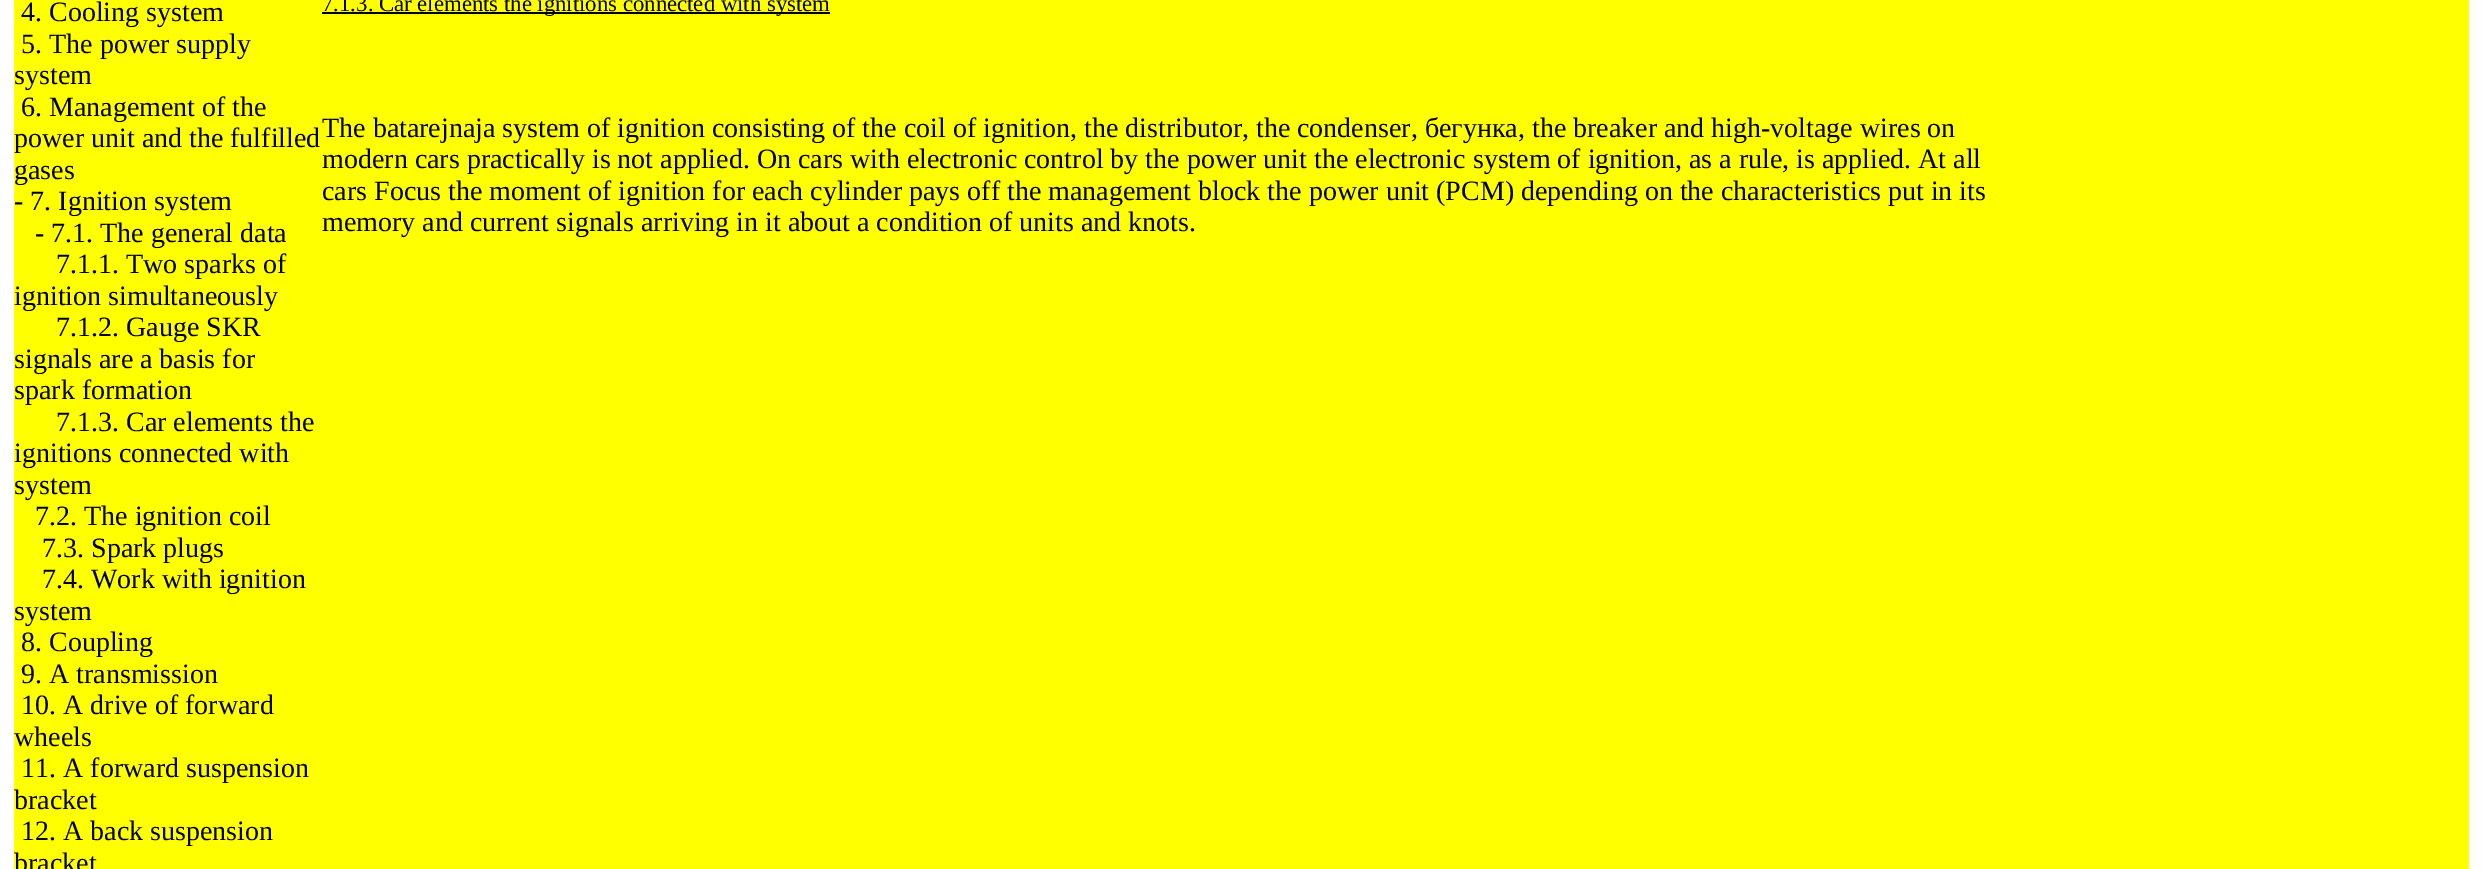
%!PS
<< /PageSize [2483 869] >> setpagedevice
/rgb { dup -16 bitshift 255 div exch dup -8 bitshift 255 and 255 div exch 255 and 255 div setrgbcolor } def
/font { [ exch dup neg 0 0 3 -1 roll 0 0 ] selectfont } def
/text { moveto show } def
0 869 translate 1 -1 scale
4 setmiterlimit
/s1 { /LiberationSerif-Regular 28 font 16#000000 rgb } def
/s2 { /LiberationSerif-Regular 22.75 font 16#000000 rgb } def
16#FFFFFF rgb
0 0 2483 869 rectfill
16#FFFF00 rgb
14 0 2455 869 rectfill
s1
(4. Cooling system) 21 21 text
(5. The power supply) 21 53 text
(system) 14 84 text
(6. Management of the) 21 116 text
(power unit and the fulfilled) 14 147 text
(gases) 14 179 text
(- 7. Ignition system) 14 210 text
(- 7.1. The general data) 35 242 text
(7.1.1. Two sparks of) 56 273 text
(ignition simultaneously) 14 305 text
(7.1.2. Gauge SKR) 56 336 text
(signals are a basis for) 14 368 text
(spark formation) 14 399 text
(7.1.3. Car elements the) 56 431 text
(ignitions connected with) 14 462 text
(system) 14 494 text
(7.2. The ignition coil) 35 525 text
(7.3. Spark plugs) 42 557 text
(7.4. Work with ignition) 42 588 text
(system) 14 620 text
(8. Coupling) 21 651 text
(9. A transmission) 21 683 text
(10. A drive of forward) 21 714 text
(wheels) 14 746 text
(11. A forward suspension) 21 777 text
(bracket) 14 809 text
(12. A back suspension) 21 840 text
(bracket) 14 872 text
322 12 508 2 rectfill
s2
(7.1.3. Car elements the ignitions connected with system) 322 11 text
s1
(The batarejnaja system of ignition consisting of the coil of ignition, the distributor, the condenser, бегунка, the breaker and high-voltage wires on) 322 137 text
(modern cars practically is not applied. On cars with electronic control by the power unit the electronic system of ignition, as a rule, is applied. At all) 322 168 text
(cars Focus the moment of ignition for each cylinder pays off the management block the power unit \(РСМ\) depending on the characteristics put in its) 322 200 text
(memory and current signals arriving in it about a condition of units and knots.) 322 231 text
showpage
